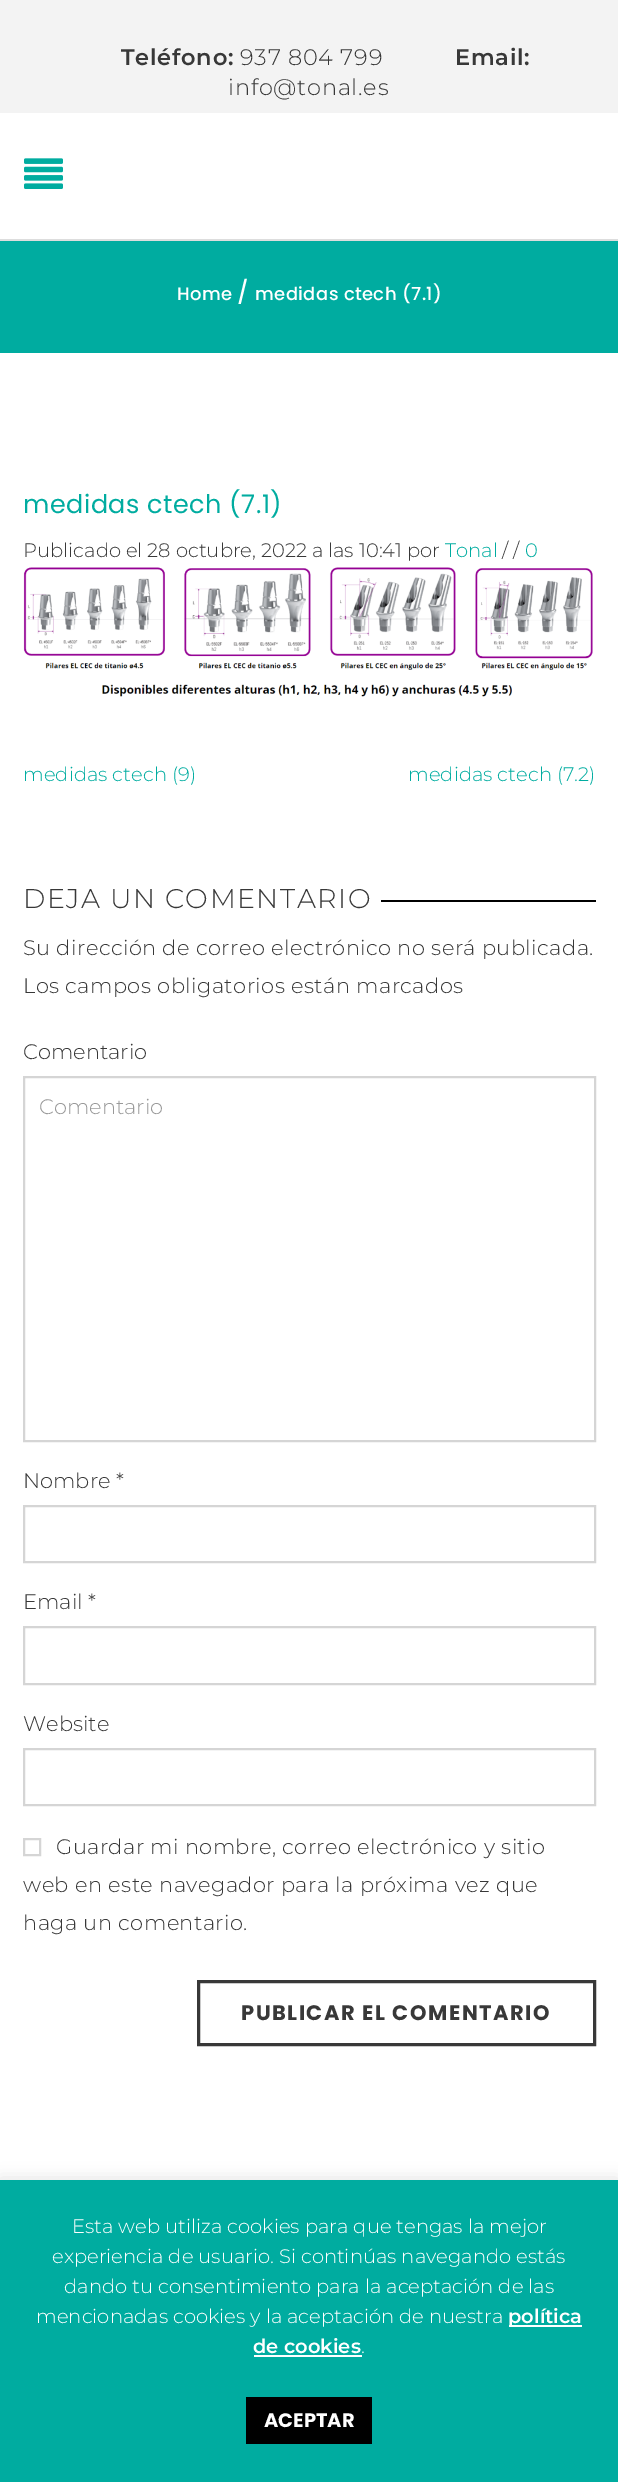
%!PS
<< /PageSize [618 2482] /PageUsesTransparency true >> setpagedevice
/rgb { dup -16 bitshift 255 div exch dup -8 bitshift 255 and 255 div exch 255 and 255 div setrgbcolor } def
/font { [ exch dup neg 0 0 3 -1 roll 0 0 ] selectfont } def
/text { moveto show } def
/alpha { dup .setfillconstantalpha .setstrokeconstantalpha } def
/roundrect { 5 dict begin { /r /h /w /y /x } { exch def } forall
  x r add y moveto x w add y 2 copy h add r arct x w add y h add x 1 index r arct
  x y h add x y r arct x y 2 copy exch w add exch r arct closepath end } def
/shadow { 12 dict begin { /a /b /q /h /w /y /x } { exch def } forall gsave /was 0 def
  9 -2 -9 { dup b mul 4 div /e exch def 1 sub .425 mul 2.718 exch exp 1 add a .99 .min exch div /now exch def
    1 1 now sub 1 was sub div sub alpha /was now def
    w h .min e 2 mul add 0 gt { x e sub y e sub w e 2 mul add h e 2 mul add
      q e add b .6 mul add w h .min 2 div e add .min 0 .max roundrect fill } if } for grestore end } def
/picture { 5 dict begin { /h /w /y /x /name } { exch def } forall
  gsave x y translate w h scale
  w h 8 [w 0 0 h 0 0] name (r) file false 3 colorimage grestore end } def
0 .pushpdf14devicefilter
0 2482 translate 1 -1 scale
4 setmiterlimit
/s1 { /Poppins-Medium 22.5 font 16#FFFFFF rgb } def
/s2 { /Montserrat-Light 19.5 font 16#383838 rgb } def
/s3 { /Montserrat-Light 19.5 font 16#00ACA0 rgb } def
/s4 { /Montserrat-Light 21 font 16#383838 rgb } def
/s5 { /Montserrat-Light 21 font 16#999999 rgb } def
/s6 { /Montserrat-Light 19.5 font 16#FFFFFF rgb } def
/s7 { /Montserrat-SemiBold 19.5 font 16#FFFFFF rgb } def
/s8 { /Poppins-Bold 19.5 font 16#FFFFFF rgb } def
16#FFFFFF rgb
0 0 618 2482 rectfill
16#F3F3F3 rgb
0 0 618 113 rectfill
/Montserrat-SemiBold 22.5 font
16#383838 rgb
121 65 moveto 0.75 0 (Teléfono:) ashow
/Montserrat-Light 22.5 font
240 65 moveto 0.75 0 (937 804 799) ashow
/Montserrat-SemiBold 22.5 font
455 65 moveto 0.75 0 (Email:) ashow
/Montserrat-Light 22.5 font
228 95 moveto 0.75 0 (info@tonal.es) ashow
(pic1.raw) 24 158 39 31 picture
16#00ACA0 rgb
0 241 618 112 rectfill
16#DDDDDD rgb
0 239 618 2 rectfill
/Poppins-Medium 18 font
16#FFFFFF rgb
177 300 moveto 0.4 0 (Home) ashow
s1
(/) 237 300 text
/Poppins-Medium 18 font
255 300 moveto 0.4 0 (medidas ctech \(7.1\)) ashow
/Poppins-Regular 25.5 font
16#00ACA0 rgb
23 513 moveto 0.5 0 (medidas ctech \(7.1\)) ashow
s2
(Publicado el 28 octubre, 2022 a las 10:41 por) 23 557 text
s3
(Tonal) 445 557 text
s2
(/ /) 502 557 text
s3
(0) 525 557 text
(pic2.raw) 23 567 570 130 picture
(medidas ctech \(9\)) 23 781 text
(medidas ctech \(7.2\)) 408 781 text
/Montserrat-Light 27 font
16#383838 rgb
23 908 moveto 1.5 0 (DEJA UN COMENTARIO) ashow
16#000000 rgb
381 900 215 2 rectfill
/Montserrat-Light 21 font
16#383838 rgb
23 955 moveto 0.42 0 (Su dirección de correo electrónico no será publicada.) ashow
23 993 moveto 0.42 0 (Los campos obligatorios están marcados) ashow
(Comentario) 23 1059 text
16#D5D5D5 rgb
2 setlinewidth
24 1077 571 364 rectstroke
s5
(Comentario) 39 1114 text
s4
(Nombre *) 23 1488 text
16#D5D5D5 rgb
24 1506 571 56 rectstroke
s4
(Email *) 23 1609 text
16#D5D5D5 rgb
24 1627 571 57 rectstroke
s4
(Website) 23 1731 text
16#D5D5D5 rgb
24 1749 571 56 rectstroke
24 1839 16 16 rectstroke
16#383838 rgb
56 1854 moveto 0.42 0 (Guardar mi nombre, correo electrónico y sitio) ashow
23 1892 moveto 0.42 0 (web en este navegador para la próxima vez que) ashow
23 1930 moveto 0.42 0 (haga un comentario.) ashow
3 setlinewidth
198.5 1981.5 396 63 rectstroke
/Poppins-Bold 21 font
241 2020 moveto 1.5 0 (PUBLICAR EL COMENTARIO) ashow
16#ACABAB rgb
0 2178 618 303 0 7.5 0.3 shadow
16#00ACA0 rgb
0 2180 618 302 rectfill
s6
(Esta web utiliza cookies para que tengas la mejor) 72 2233 text
(experiencia de usuario. Si continúas navegando estás) 52 2263 text
(dando tu consentimiento para la aceptación de las) 64 2293 text
(mencionadas cookies y la aceptación de nuestra) 36 2323 text
509 2325 73 2 rectfill
s7
(política) 508 2323 text
(de cookies) 253 2353 text
254 2355 108 2 rectfill
s6
(.) 361 2353 text
16#000000 rgb
246 2397 126 47 rectfill
s8
(ACEPTAR) 264 2427 text
.poppdf14devicefilter showpage
